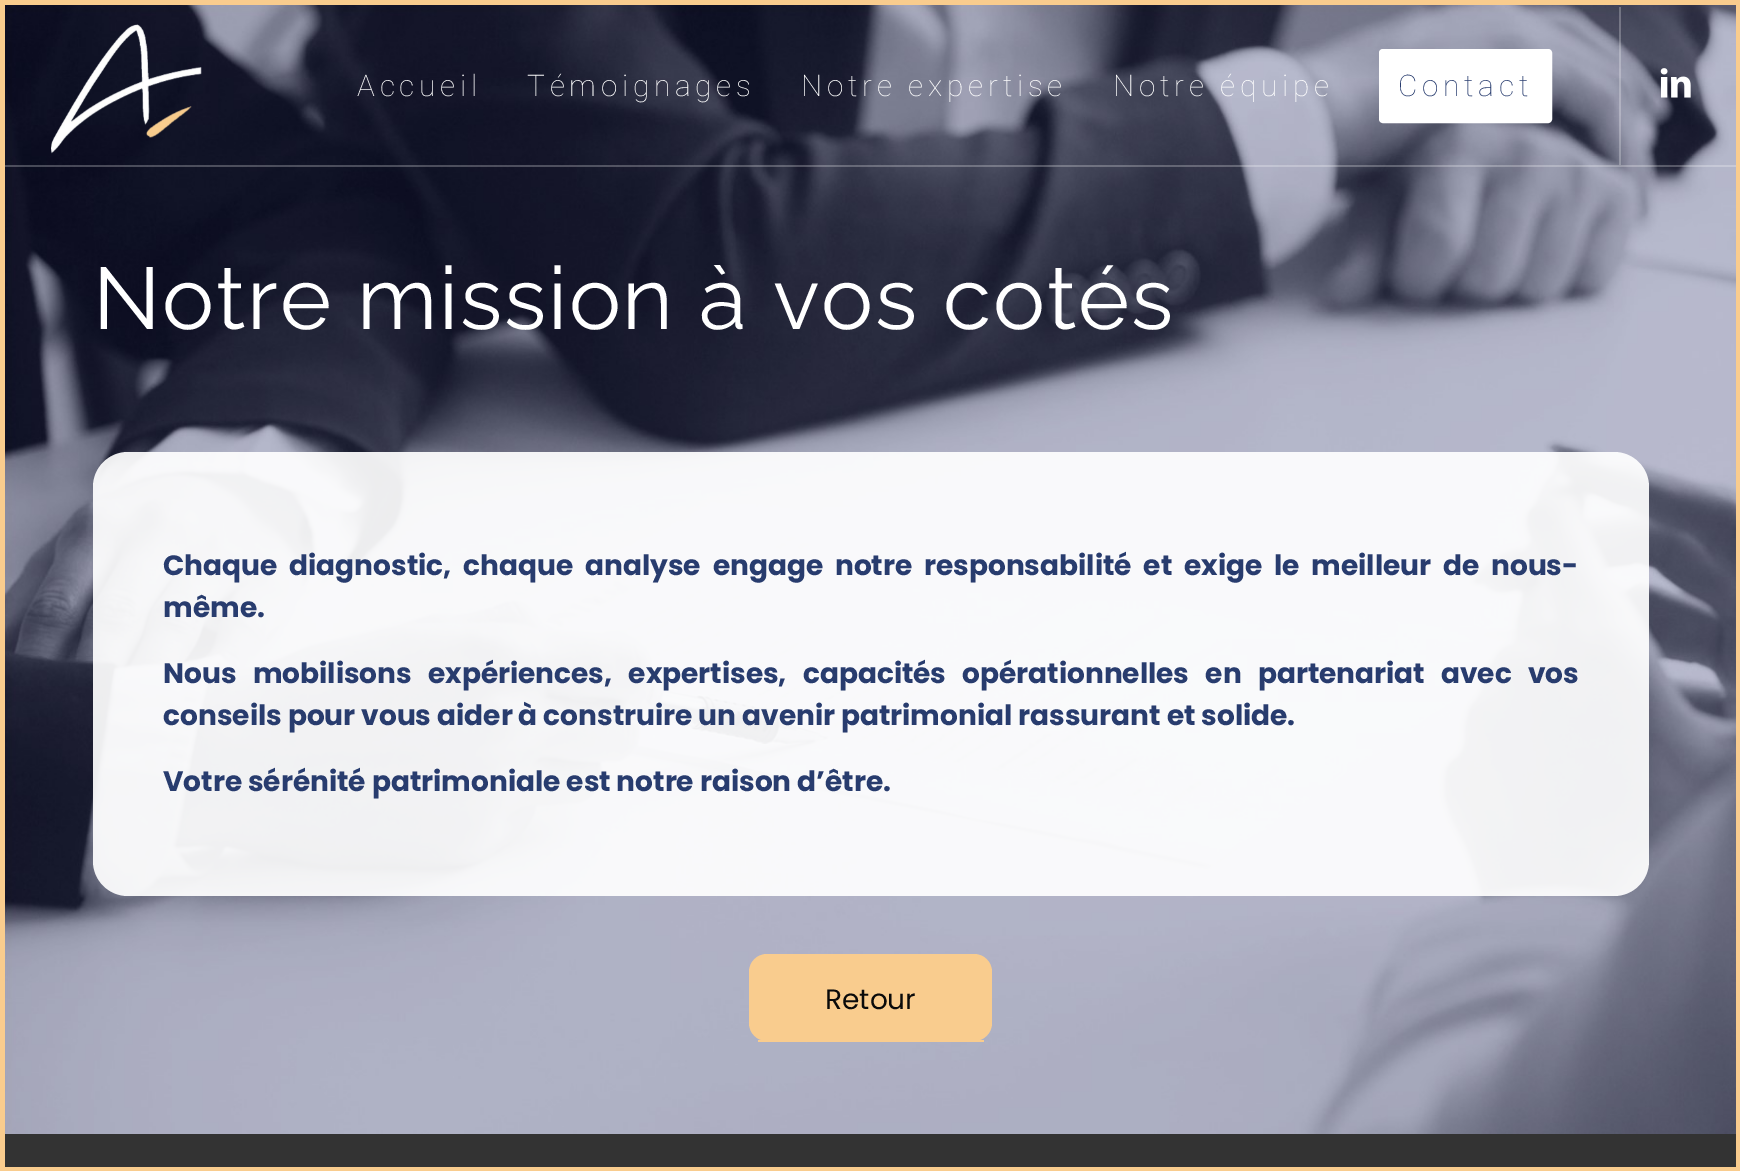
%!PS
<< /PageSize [1740 1171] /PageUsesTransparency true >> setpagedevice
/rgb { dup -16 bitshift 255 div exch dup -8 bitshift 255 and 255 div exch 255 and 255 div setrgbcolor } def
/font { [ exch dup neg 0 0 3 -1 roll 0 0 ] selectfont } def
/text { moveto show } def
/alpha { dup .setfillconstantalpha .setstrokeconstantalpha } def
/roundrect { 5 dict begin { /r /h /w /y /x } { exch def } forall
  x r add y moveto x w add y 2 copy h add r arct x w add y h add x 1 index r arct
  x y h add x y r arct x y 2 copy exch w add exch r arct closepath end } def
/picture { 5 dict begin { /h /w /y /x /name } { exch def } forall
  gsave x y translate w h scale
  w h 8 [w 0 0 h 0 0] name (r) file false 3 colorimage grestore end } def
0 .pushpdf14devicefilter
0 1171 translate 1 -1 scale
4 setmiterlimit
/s1 { /Poppins-Bold 28 font 16#283C6E rgb } def
/s2 { /Poppins-Regular 28 font 16#0A0A0A rgb } def
16#333333 rgb
0 0 1740 1171 rectfill
16#F9CC8E rgb
0 0 1740 5 rectfill
0 1167 1740 4 rectfill
0 0 5 1171 rectfill
(pic3.raw) 5 5 1731 1129 picture
0.25 alpha
16#FFFFFF rgb
5 165 1731 2 rectfill
1 alpha
(pic1.raw) 51 24 151 130 picture
0.25 alpha
1619 7 2 158 rectfill
/Roboto-Thin 29.75 font
1 alpha
357 96 moveto 4.75 0 (Accueil) ashow
527 96 moveto 4.75 0 (Témoignages) ashow
801 96 moveto 4.75 0 (Notre expertise) ashow
1113 96 moveto 4.75 0 (Notre équipe) ashow
1381 51 169 70 2 roundrect gsave fill grestore
4 setlinewidth
stroke
16#283C6E rgb
1398 96 moveto 4.75 0 (Contact) ashow
(pic2.raw) 1660 68 31 30 picture
/Raleway-Thin 87.5 font
16#FFFFFF rgb
93 329 moveto 1.75 0 (Notre mission à vos cotés) ashow
0.92 alpha
93 452 1556 444 35 roundrect fill
/Poppins-Bold 28 font
1 alpha
16#283C6E rgb
163 575 moveto 5.9 0 32 (Chaque diagnostic, chaque analyse engage notre responsabilité et exige le meilleur de nous-) widthshow
(même.) 163 617 text
163 683 moveto 10.25 0 32 (Nous mobilisons expériences, expertises, capacités opérationnelles en partenariat avec vos) widthshow
(conseils pour vous aider à construire un avenir patrimonial rassurant et solide.) 163 725 text
(Votre sérénité patrimoniale est notre raison d’être.) 163 791 text
16#F9CC8E rgb
749 954 243 87 18 roundrect fill
758 1040 226 2 rectfill
s2
(Retour) 825 1009 text
16#F9CC8E rgb
1736 0 4 1171 rectfill
.poppdf14devicefilter showpage
